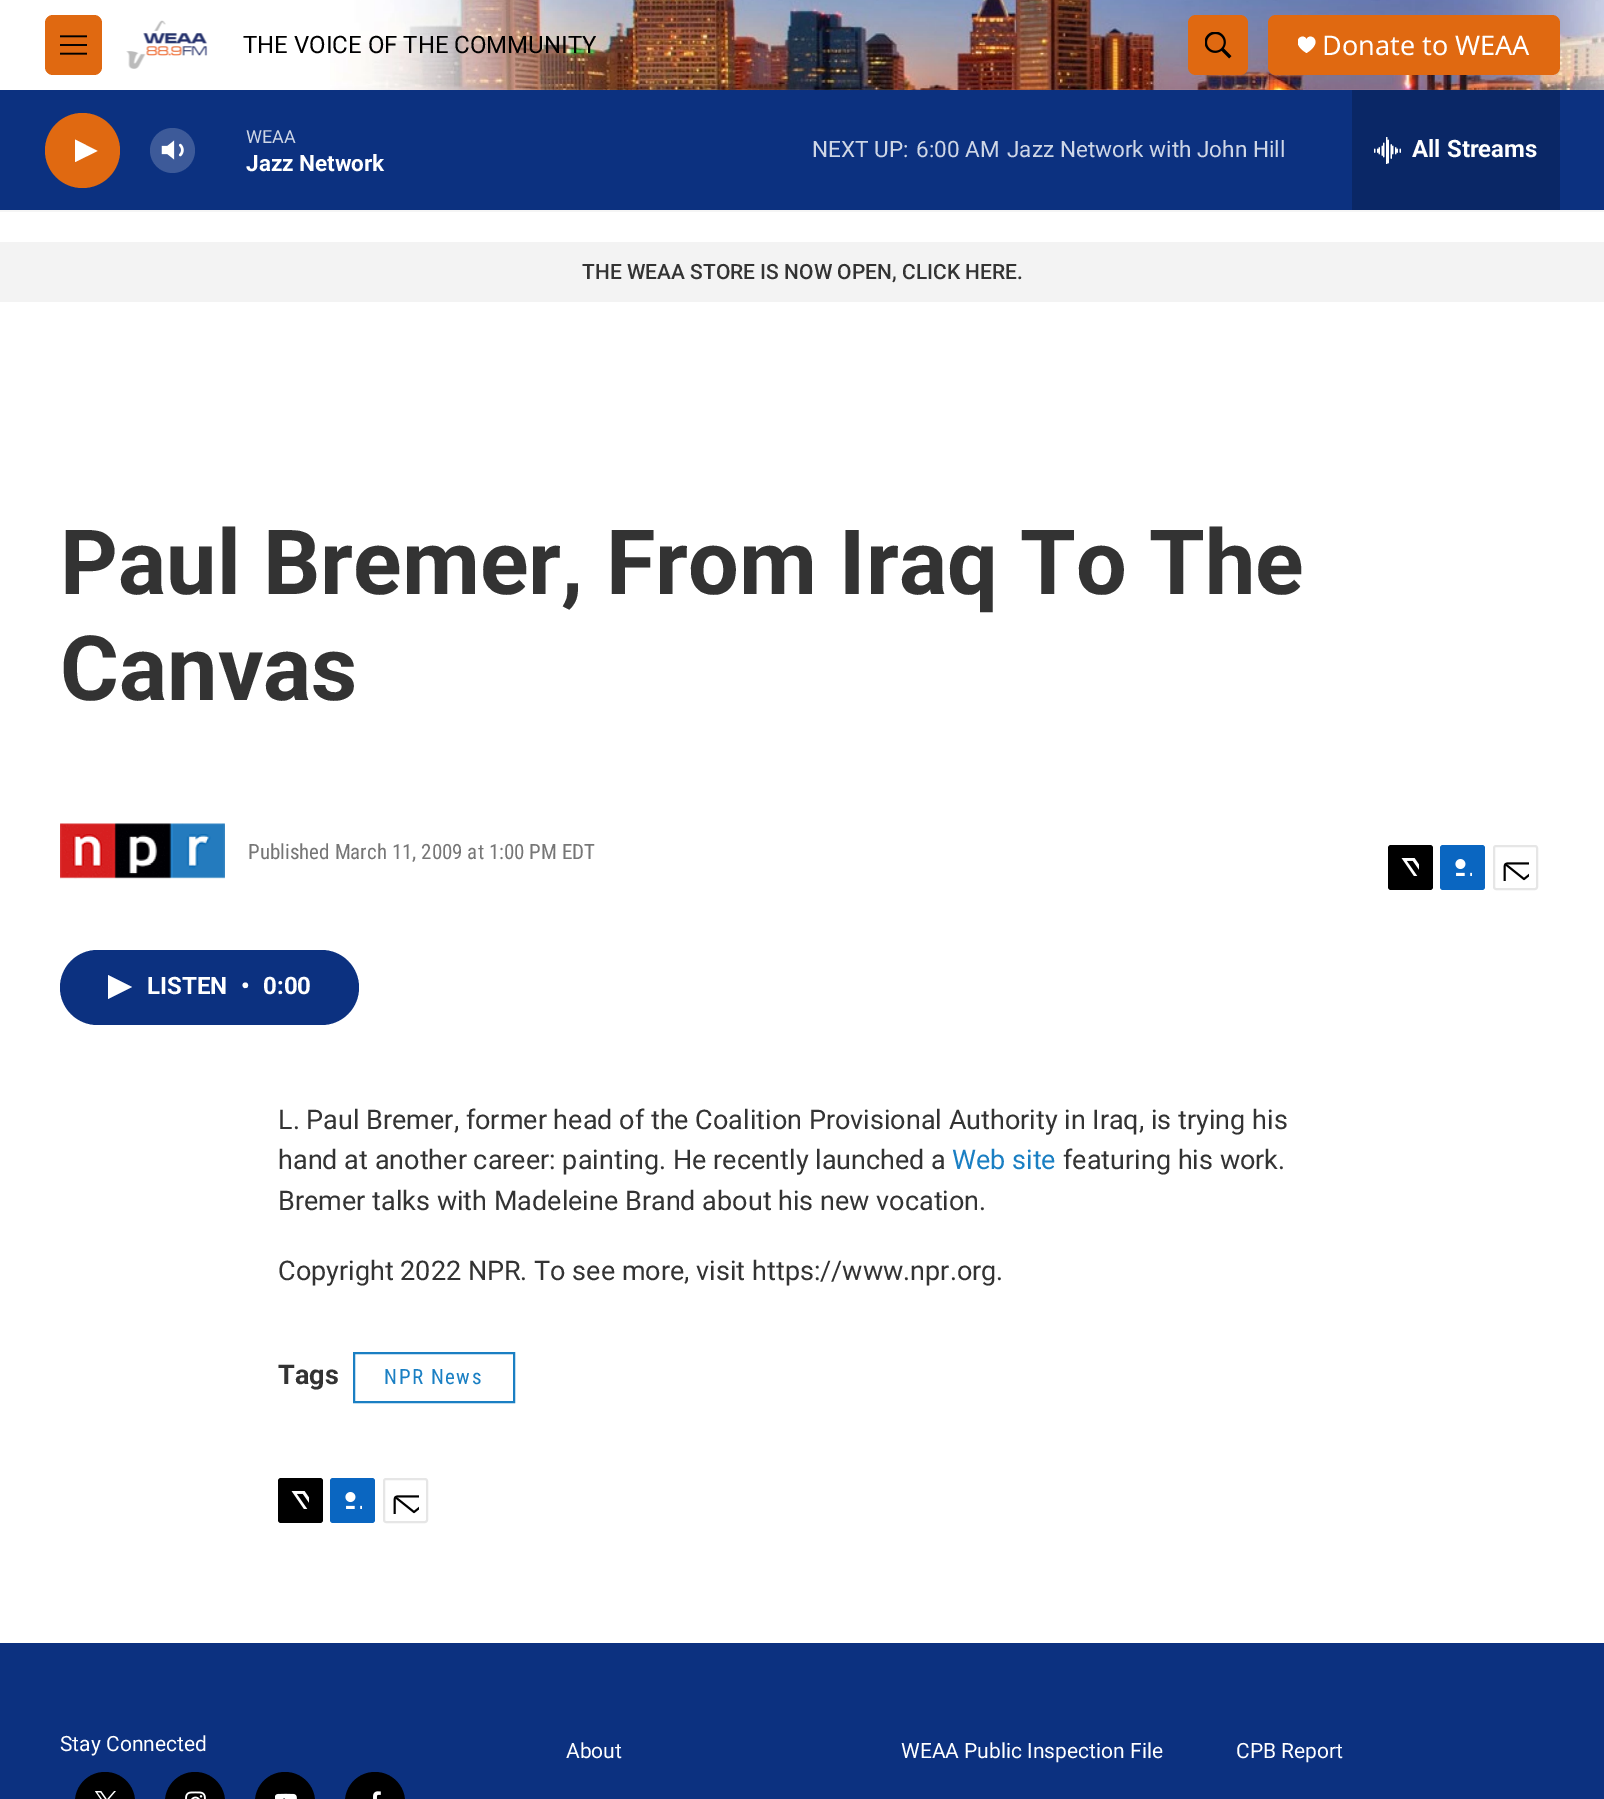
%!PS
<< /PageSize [1604 1799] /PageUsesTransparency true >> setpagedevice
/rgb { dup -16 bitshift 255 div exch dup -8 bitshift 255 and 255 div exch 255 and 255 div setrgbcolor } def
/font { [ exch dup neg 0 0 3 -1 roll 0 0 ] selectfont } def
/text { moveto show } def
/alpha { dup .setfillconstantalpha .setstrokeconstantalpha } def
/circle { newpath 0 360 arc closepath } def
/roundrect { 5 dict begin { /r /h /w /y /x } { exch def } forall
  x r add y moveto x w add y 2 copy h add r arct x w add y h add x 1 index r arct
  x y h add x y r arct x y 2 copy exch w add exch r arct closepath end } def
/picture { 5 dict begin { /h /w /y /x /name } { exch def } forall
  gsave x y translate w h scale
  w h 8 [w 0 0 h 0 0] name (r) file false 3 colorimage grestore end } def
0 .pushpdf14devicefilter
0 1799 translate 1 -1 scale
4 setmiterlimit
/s1 { /Roboto-Regular 24 font 16#000000 rgb } def
/s2 { /NotoSans-Regular 27 font 16#FFFFFF rgb } def
/s3 { /Roboto-Regular 18 font 16#CED6E6 rgb } def
/s4 { /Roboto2-Bold 22.5 font 16#FFFFFF rgb } def
/s5 { /Roboto-Regular 22.5 font 16#CED6E6 rgb } def
/s6 { /Roboto2-Bold 24 font 16#FFFFFF rgb } def
/s7 { /Roboto-Medium 21 font 16#333333 rgb } def
/s8 { /Roboto-Bold 90 font 16#333333 rgb } def
/s9 { /RobotoCondensed-Regular 21 font 16#767676 rgb } def
/s10 { /Roboto-Regular 27 font 16#333333 rgb } def
/s11 { /Roboto-Regular 27 font 16#1A7FC3 rgb } def
/s12 { /Roboto-Bold 27 font 16#333333 rgb } def
/s13 { /Roboto-Regular 21 font 16#FFFFFF rgb } def
16#FFFFFF rgb
0 0 1604 1799 rectfill
16#F5F5F5 rgb
0 210 1604 2 rectfill
(pic1.raw) 330 0 1274 90 picture
16#E06911 rgb
45 15 57 60 8 roundrect fill
(pic2.raw) 60 35 27 20 picture
(pic3.raw) 126 20 82 49 picture
s1
(THE VOICE OF THE COMMUNITY) 243 53 text
16#E06911 rgb
1188 15 60 60 8 roundrect fill
(pic4.raw) 1205 32 27 27 picture
1268 15 292 60 8 roundrect fill
gsave
1298 36 18 18 rectclip
16#FFFFFF rgb
1306.5 39.5 moveto 1303.5 31.5 1288 41.5 1306.5 53 curveto 1325 41.5 1309.5 31.5 1306.5 39.5 curveto closepath fill
grestore
s2
(Donate to WEAA) 1322 55 text
16#0C3180 rgb
0 90 1604 120 rectfill
16#E06911 rgb
82.5 150.5 37.5 circle fill
16#FFFFFF rgb
75 139.5 moveto 97.5 151 lineto 75 162 lineto closepath fill
(pic5.raw) 161 140 23 20 picture
0.2 alpha
172.5 150.5 22.5 circle fill
1 alpha
s3
(WEAA) 246 143 text
s4
(Jazz Network) 246 171 text
s5
(NEXT UP:) 812 157 text
(6:00 AM) 916 157 text
(Jazz Network with John Hill) 1007 157 text
16#0A2766 rgb
1352 90 208 120 rectfill
(pic6.raw) 1374 137 27 27 picture
s6
(All Streams) 1412 157 text
16#F3F3F3 rgb
0 242 1604 60 rectfill
s7
(THE WEAA STORE IS NOW OPEN, CLICK HERE.) 582 279 text
s8
(Paul Bremer, From Iraq To The) 60 594 text
(Canvas) 60 700 text
(pic7.raw) 60 823 165 56 picture
s9
(Published March 11, 2009 at 1:00 PM EDT) 248 859 text
16#000000 rgb
1388 845 45 45 3 roundrect fill
(pic8.raw) 1401 858 18 18 picture
16#0A66C1 rgb
1440 845 45 45 3 roundrect fill
(pic9.raw) 1455 859 17 17 picture
16#E6E6E6 rgb
2 setlinewidth
1494 846 43 43 2 roundrect stroke
(pic10.raw) 1503 862 26 19 picture
16#0C3180 rgb
60 950 299 75 37.5 roundrect fill
16#FFFFFF rgb
108 975 moveto 132 987 lineto 108 999 lineto closepath fill
s6
(LISTEN) 147 994 text
(•) 241 994 text
(0:00) 263 994 text
s10
(L. Paul Bremer, former head of the Coalition Provisional Authority in Iraq, is trying his) 278 1129 text
(hand at another career: painting. He recently launched a) 278 1169 text
s11
(Web site) 952 1169 text
s10
(featuring his work.) 1063 1169 text
(Bremer talks with Madeleine Brand about his new vocation.) 278 1210 text
(Copyright 2022 NPR. To see more, visit https://www.npr.org.) 278 1280 text
s12
(Tags) 278 1384 text
16#1A7FC3 rgb
354 1353 160 49 rectstroke
/RobotoCondensed-Regular 21 font
384 1384 moveto 1.5 0 (NPR News) ashow
16#000000 rgb
278 1478 45 45 3 roundrect fill
(pic8.raw) 291 1491 18 18 picture
16#0A66C1 rgb
330 1478 45 45 3 roundrect fill
(pic9.raw) 345 1492 17 17 picture
16#E6E6E6 rgb
384 1479 43 43 2 roundrect stroke
(pic10.raw) 393 1495 26 19 picture
16#0C3180 rgb
0 1643 1604 156 rectfill
s13
(Stay Connected) 60 1751 text
16#000000 rgb
75 1772 60 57 30 roundrect fill
(pic11.raw) 95 1791 21 8 picture
165 1772 60 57 30 roundrect fill
(pic12.raw) 185 1791 21 8 picture
255 1772 60 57 30 roundrect fill
(pic13.raw) 275 1793 22 6 picture
345 1772 60 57 30 roundrect fill
(pic14.raw) 373 1791 8 8 picture
s13
(About) 566 1758 text
(WEAA Public Inspection File) 901 1758 text
(CPB Report) 1236 1758 text
.poppdf14devicefilter showpage
